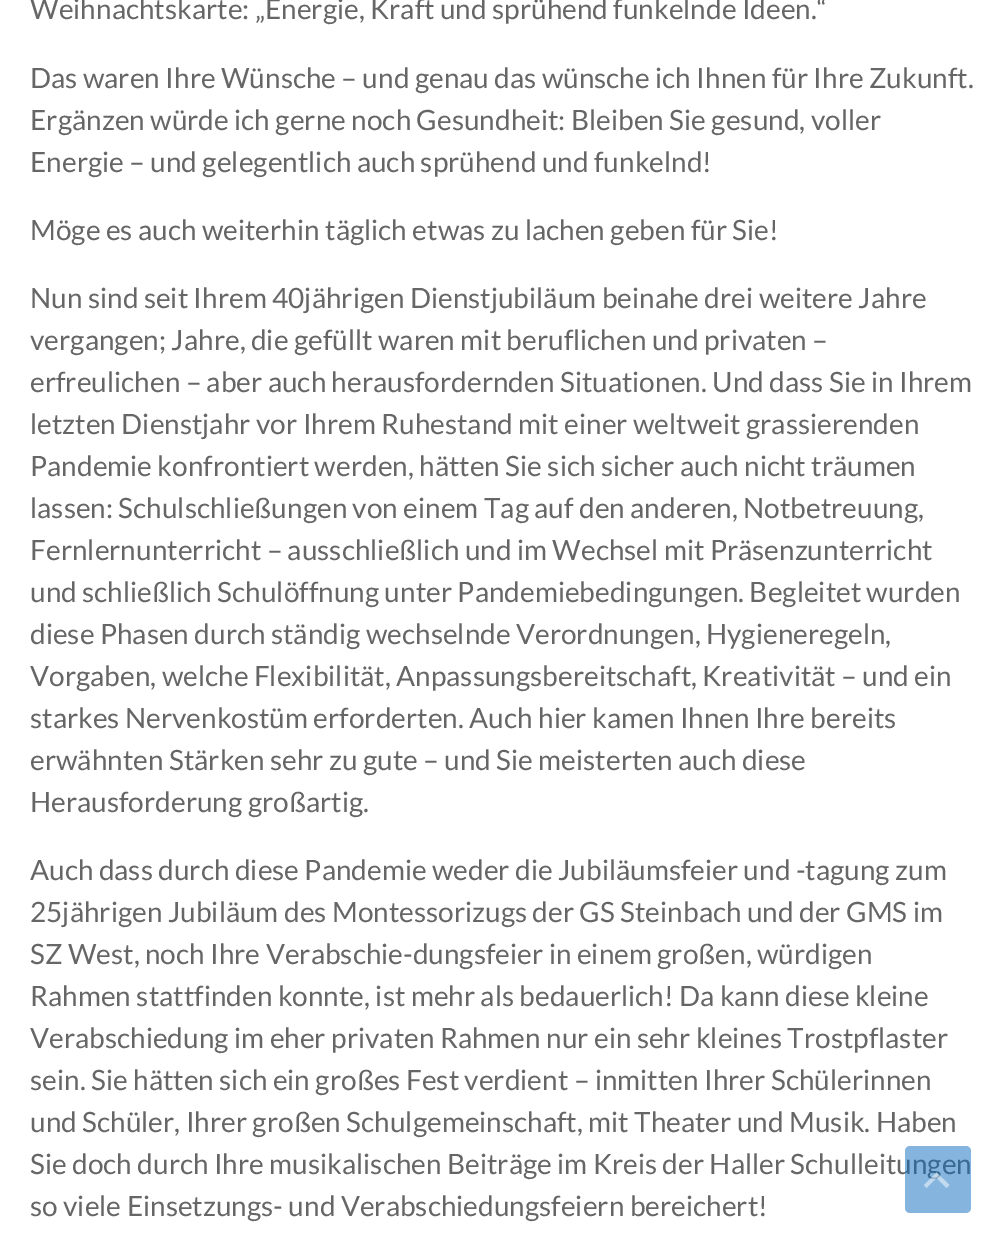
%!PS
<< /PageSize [1006 1247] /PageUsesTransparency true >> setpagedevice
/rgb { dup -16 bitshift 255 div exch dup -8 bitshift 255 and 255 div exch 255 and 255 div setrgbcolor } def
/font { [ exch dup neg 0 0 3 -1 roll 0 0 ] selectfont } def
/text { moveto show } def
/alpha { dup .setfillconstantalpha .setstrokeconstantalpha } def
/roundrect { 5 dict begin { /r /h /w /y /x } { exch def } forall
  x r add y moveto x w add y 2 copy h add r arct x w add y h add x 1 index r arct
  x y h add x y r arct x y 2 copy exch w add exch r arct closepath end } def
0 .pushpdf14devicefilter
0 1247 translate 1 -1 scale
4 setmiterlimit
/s1 { /Lato-Regular 28 font 16#666666 rgb } def
16#FFFFFF rgb
0 0 1006 1247 rectfill
s1
(Weihnachtskarte: „Energie, Kraft und sprühend funkelnde Ideen.“) 30 19 text
(Das waren Ihre Wünsche – und genau das wünsche ich Ihnen für Ihre Zukunft.) 30 88 text
(Ergänzen würde ich gerne noch Gesundheit: Bleiben Sie gesund, voller) 30 130 text
(Energie – und gelegentlich auch sprühend und funkelnd!) 30 172 text
(Möge es auch weiterhin täglich etwas zu lachen geben für Sie!) 30 240 text
(Nun sind seit Ihrem 40jährigen Dienstjubiläum beinahe drei weitere Jahre) 30 308 text
(vergangen; Jahre, die gefüllt waren mit beruflichen und privaten –) 30 350 text
(erfreulichen – aber auch herausfordernden Situationen. Und dass Sie in Ihrem) 30 392 text
(letzten Dienstjahr vor Ihrem Ruhestand mit einer weltweit grassierenden) 30 434 text
(Pandemie konfrontiert werden, hätten Sie sich sicher auch nicht träumen) 30 476 text
(lassen: Schulschließungen von einem Tag auf den anderen, Notbetreuung,) 30 518 text
(Fernlernunterricht – ausschließlich und im Wechsel mit Präsenzunterricht) 30 560 text
(und schließlich Schulöffnung unter Pandemiebedingungen. Begleitet wurden) 30 602 text
(diese Phasen durch ständig wechselnde Verordnungen, Hygieneregeln,) 30 644 text
(Vorgaben, welche Flexibilität, Anpassungsbereitschaft, Kreativität – und ein) 30 686 text
(starkes Nervenkostüm erforderten. Auch hier kamen Ihnen Ihre bereits) 30 728 text
(erwähnten Stärken sehr zu gute – und Sie meisterten auch diese) 30 770 text
(Herausforderung großartig.) 30 812 text
(Auch dass durch diese Pandemie weder die Jubiläumsfeier und -tagung zum) 30 880 text
(25jährigen Jubiläum des Montessorizugs der GS Steinbach und der GMS im) 30 922 text
(SZ West, noch Ihre Verabschie-dungsfeier in einem großen, würdigen) 30 964 text
(Rahmen stattfinden konnte, ist mehr als bedauerlich! Da kann diese kleine) 30 1006 text
(Verabschiedung im eher privaten Rahmen nur ein sehr kleines Trostpflaster) 30 1048 text
(sein. Sie hätten sich ein großes Fest verdient – inmitten Ihrer Schülerinnen) 30 1090 text
(und Schüler, Ihrer großen Schulgemeinschaft, mit Theater und Musik. Haben) 30 1132 text
(Sie doch durch Ihre musikalischen Beiträge im Kreis der Haller Schulleitungen) 30 1174 text
(so viele Einsetzungs- und Verabschiedungsfeiern bereichert!) 30 1216 text
0.5 alpha
16#0B6BBF rgb
905 1146 66 67 5 roundrect fill
16#FFFFFF rgb
946.5 1188 moveto 936.5 1178 lineto 926.5 1188 lineto 924 1185 lineto 936.5 1172.5 lineto 949.5 1185 lineto closepath fill
.poppdf14devicefilter showpage
